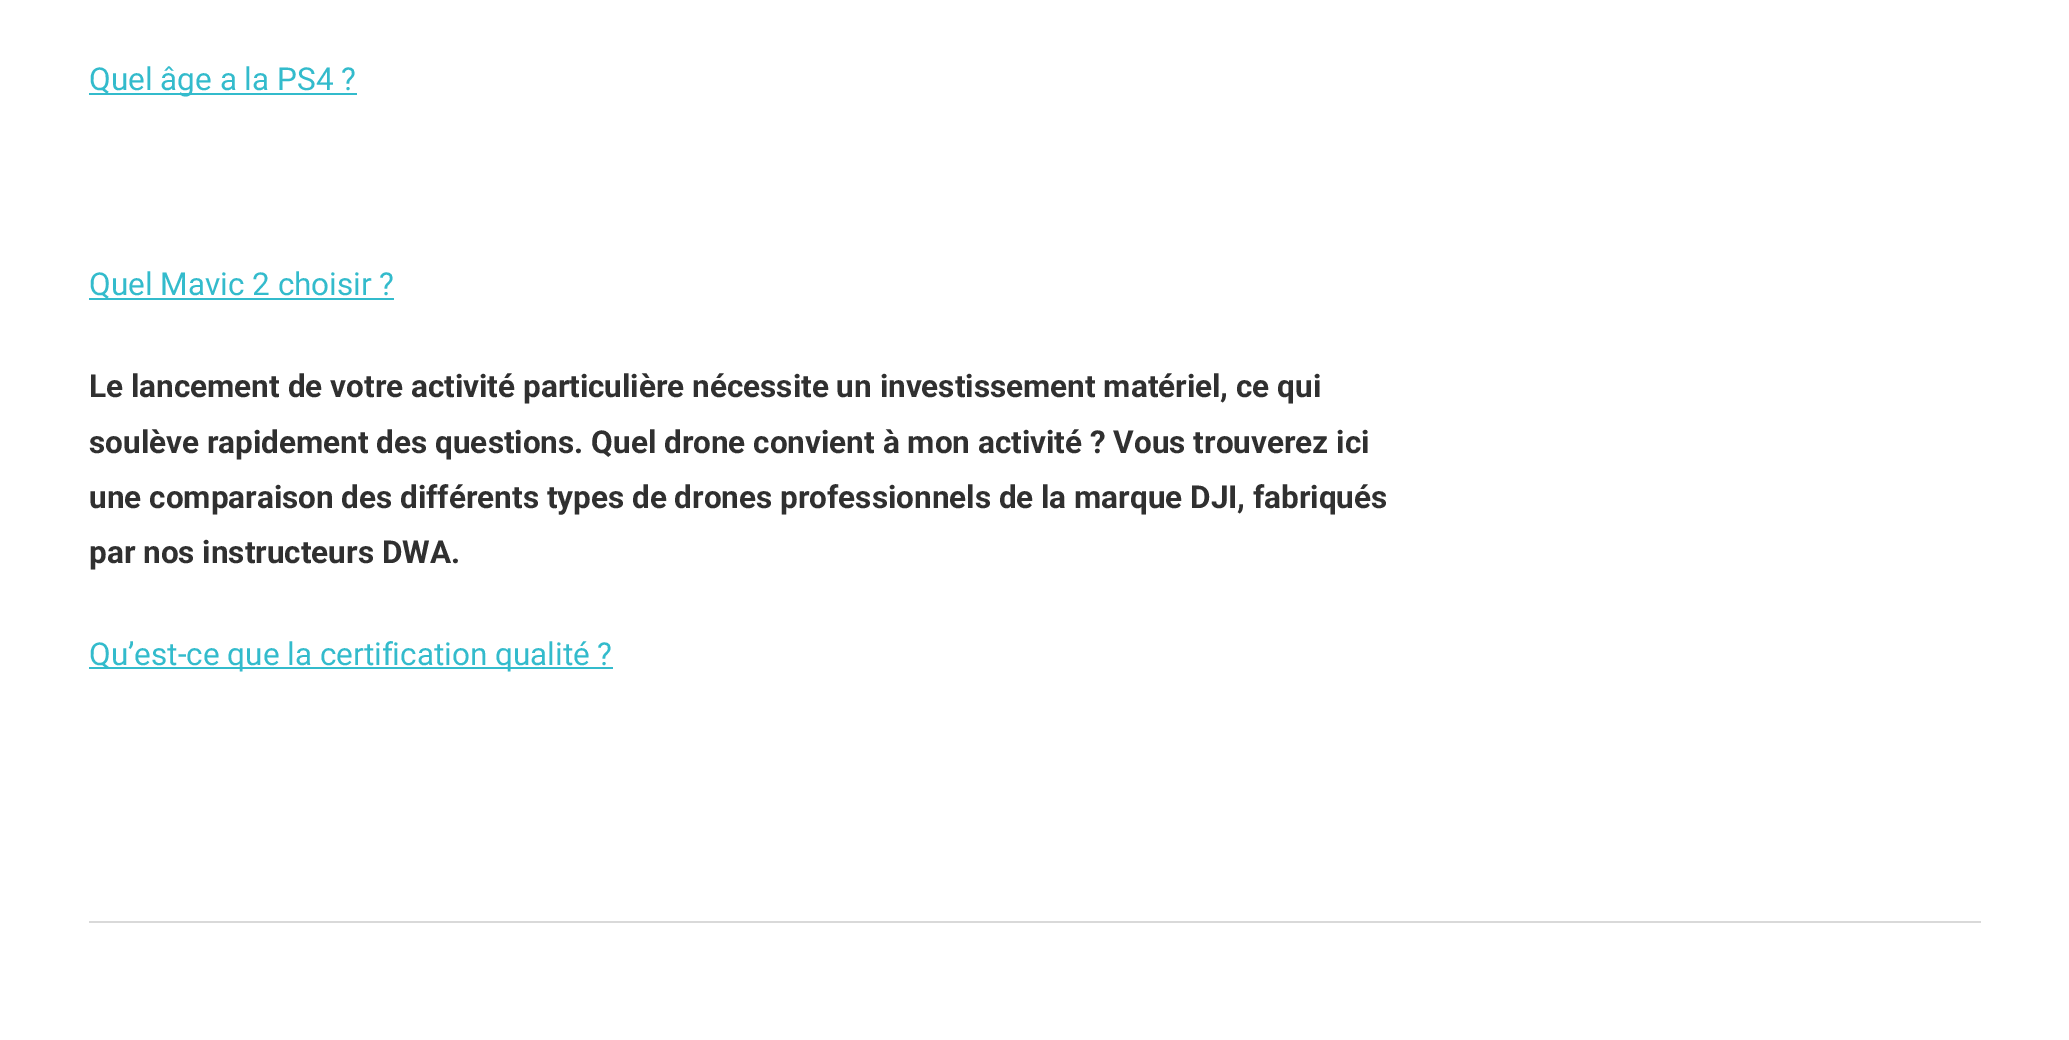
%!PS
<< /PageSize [2069 1040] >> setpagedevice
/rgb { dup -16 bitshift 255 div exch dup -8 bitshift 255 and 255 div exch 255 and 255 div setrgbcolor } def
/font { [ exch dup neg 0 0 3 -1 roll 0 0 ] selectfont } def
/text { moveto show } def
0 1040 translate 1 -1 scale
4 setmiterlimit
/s1 { /Roboto-Regular 31.5 font 16#33BBCC rgb } def
/s2 { /Roboto-Bold 31.5 font 16#303030 rgb } def
16#FFFFFF rgb
0 0 2069 1040 rectfill
16#33BBCC rgb
89 93 268 2 rectfill
s1
(Quel âge a la PS4 ?) 89 90 text
89 298 305 2 rectfill
(Quel Mavic 2 choisir ?) 89 295 text
s2
(Le lancement de votre activité particulière nécessite un investissement matériel, ce qui) 89 397 text
(soulève rapidement des questions. Quel drone convient à mon activité ? Vous trouverez ici) 89 453 text
(une comparaison des différents types de drones professionnels de la marque DJI, fabriqués) 89 508 text
(par nos instructeurs DWA.) 89 563 text
16#33BBCC rgb
89 667 524 2 rectfill
s1
(Qu’est-ce que la certification qualité ?) 89 665 text
16#D9D9D9 rgb
89 921 1892 2 rectfill
showpage
